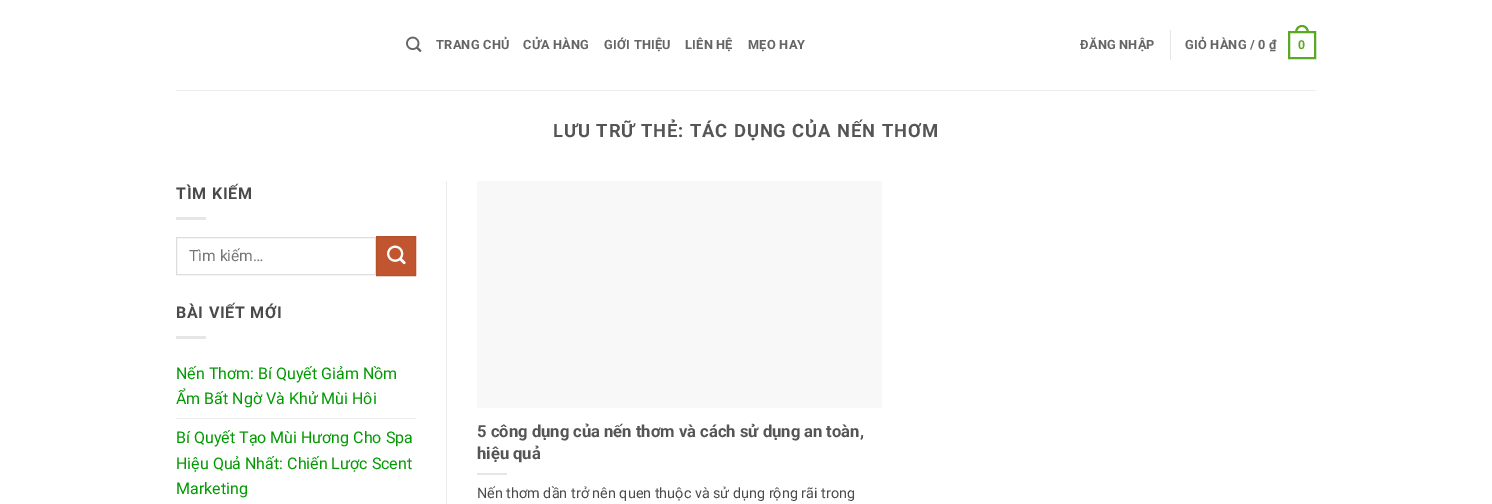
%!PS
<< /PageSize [1492 504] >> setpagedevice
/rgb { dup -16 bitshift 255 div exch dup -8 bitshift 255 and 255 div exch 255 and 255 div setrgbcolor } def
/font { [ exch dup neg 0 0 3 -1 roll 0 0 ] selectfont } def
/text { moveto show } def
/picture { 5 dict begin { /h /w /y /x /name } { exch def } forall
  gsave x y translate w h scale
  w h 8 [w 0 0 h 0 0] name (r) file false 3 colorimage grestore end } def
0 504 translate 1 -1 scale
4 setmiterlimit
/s1 { /Roboto-Regular 15.5 font 16#757575 rgb } def
/s2 { /Roboto-Regular 16 font 16#039A03 rgb } def
/s3 { /Roboto-Bold 16.6 font 16#555555 rgb } def
/s4 { /Roboto-Regular 14.4 font 16#4A4A4A rgb } def
16#FFFFFF rgb
0 0 1492 504 rectfill
(pic1.raw) 406 36 16 16 picture
/Roboto-Bold 12.75 font
16#656565 rgb
436 49 moveto 0.25 0 (TRANG CHỦ) ashow
523 49 moveto 0.25 0 (CỬA HÀNG) ashow
604 49 moveto 0.25 0 (GIỚI THIỆU) ashow
685 49 moveto 0.25 0 (LIÊN HỆ) ashow
748 49 moveto 0.25 0 (MẸO HAY) ashow
1080 49 moveto 0.25 0 (ĐĂNG NHẬP) ashow
16#E6E6E6 rgb
1170 30 1 30 rectfill
16#656565 rgb
1185 49 moveto 0.25 0 (GIỎ HÀNG / 0 ₫) ashow
16#5AA823 rgb
2 setlinewidth
1289 32 26 26 rectstroke
1302 25 moveto 1306.5 25 1309 29 1309 33 curveto 1295 33 lineto 1295 29 1297.5 25 1302 25 curveto closepath 1302 27 moveto 1305.5 27 1307 30 1307 33 curveto 1297 33 lineto 1297 30 1298.5 27 1302 27 curveto closepath eofill
/LiberationSans-Bold 12.75 font
1298 49 moveto 0.25 0 (0) ashow
16#EDEDED rgb
176 90 1140 1 rectfill
/Roboto-Bold 18.4 font
16#555555 rgb
553 137 moveto 0.9 0 (LƯU TRỮ THẺ: TÁC DỤNG CỦA NẾN THƠM) ashow
/Roboto-Bold 16 font
16#4A4A4A rgb
176 199 moveto 0.75 0 (TÌM KIẾM) ashow
16#E6E6E6 rgb
176 217 30 3 rectfill
16#DDDDDD rgb
1 setlinewidth
176.5 237.5 199 37 rectstroke
s1
(Tìm kiếm…) 189 261 text
16#C05530 rgb
376.5 236.5 moveto 415.5 236.5 lineto 415.5 275.5 lineto 376.5 275.5 lineto closepath gsave fill grestore
16#B6512E rgb
stroke
(pic2.raw) 387 245 19 20 picture
/Roboto-Bold 16 font
16#4A4A4A rgb
176 318 moveto 0.75 0 (BÀI VIẾT MỚI) ashow
16#E6E6E6 rgb
176 336 30 3 rectfill
s2
(Nến Thơm: Bí Quyết Giảm Nồm) 176 379 text
(Ẩm Bất Ngờ Và Khử Mùi Hôi) 176 404 text
16#ECECEC rgb
176 418 240 1 rectfill
s2
(Bí Quyết Tạo Mùi Hương Cho Spa) 176 443 text
(Hiệu Quả Nhất: Chiến Lược Scent) 176 469 text
(Marketing) 176 494 text
16#ECECEC rgb
446 181 1 323 rectfill
16#F8F8F8 rgb
477 181 405 227 rectfill
s3
(5 công dụng của nến thơm và cách sử dụng an toàn,) 477 437 text
(hiệu quả) 477 459 text
16#E6E6E6 rgb
477 473 30 2 rectfill
s4
(Nến thơm dần trở nên quen thuộc và sử dụng rộng rãi trong) 477 498 text
showpage
